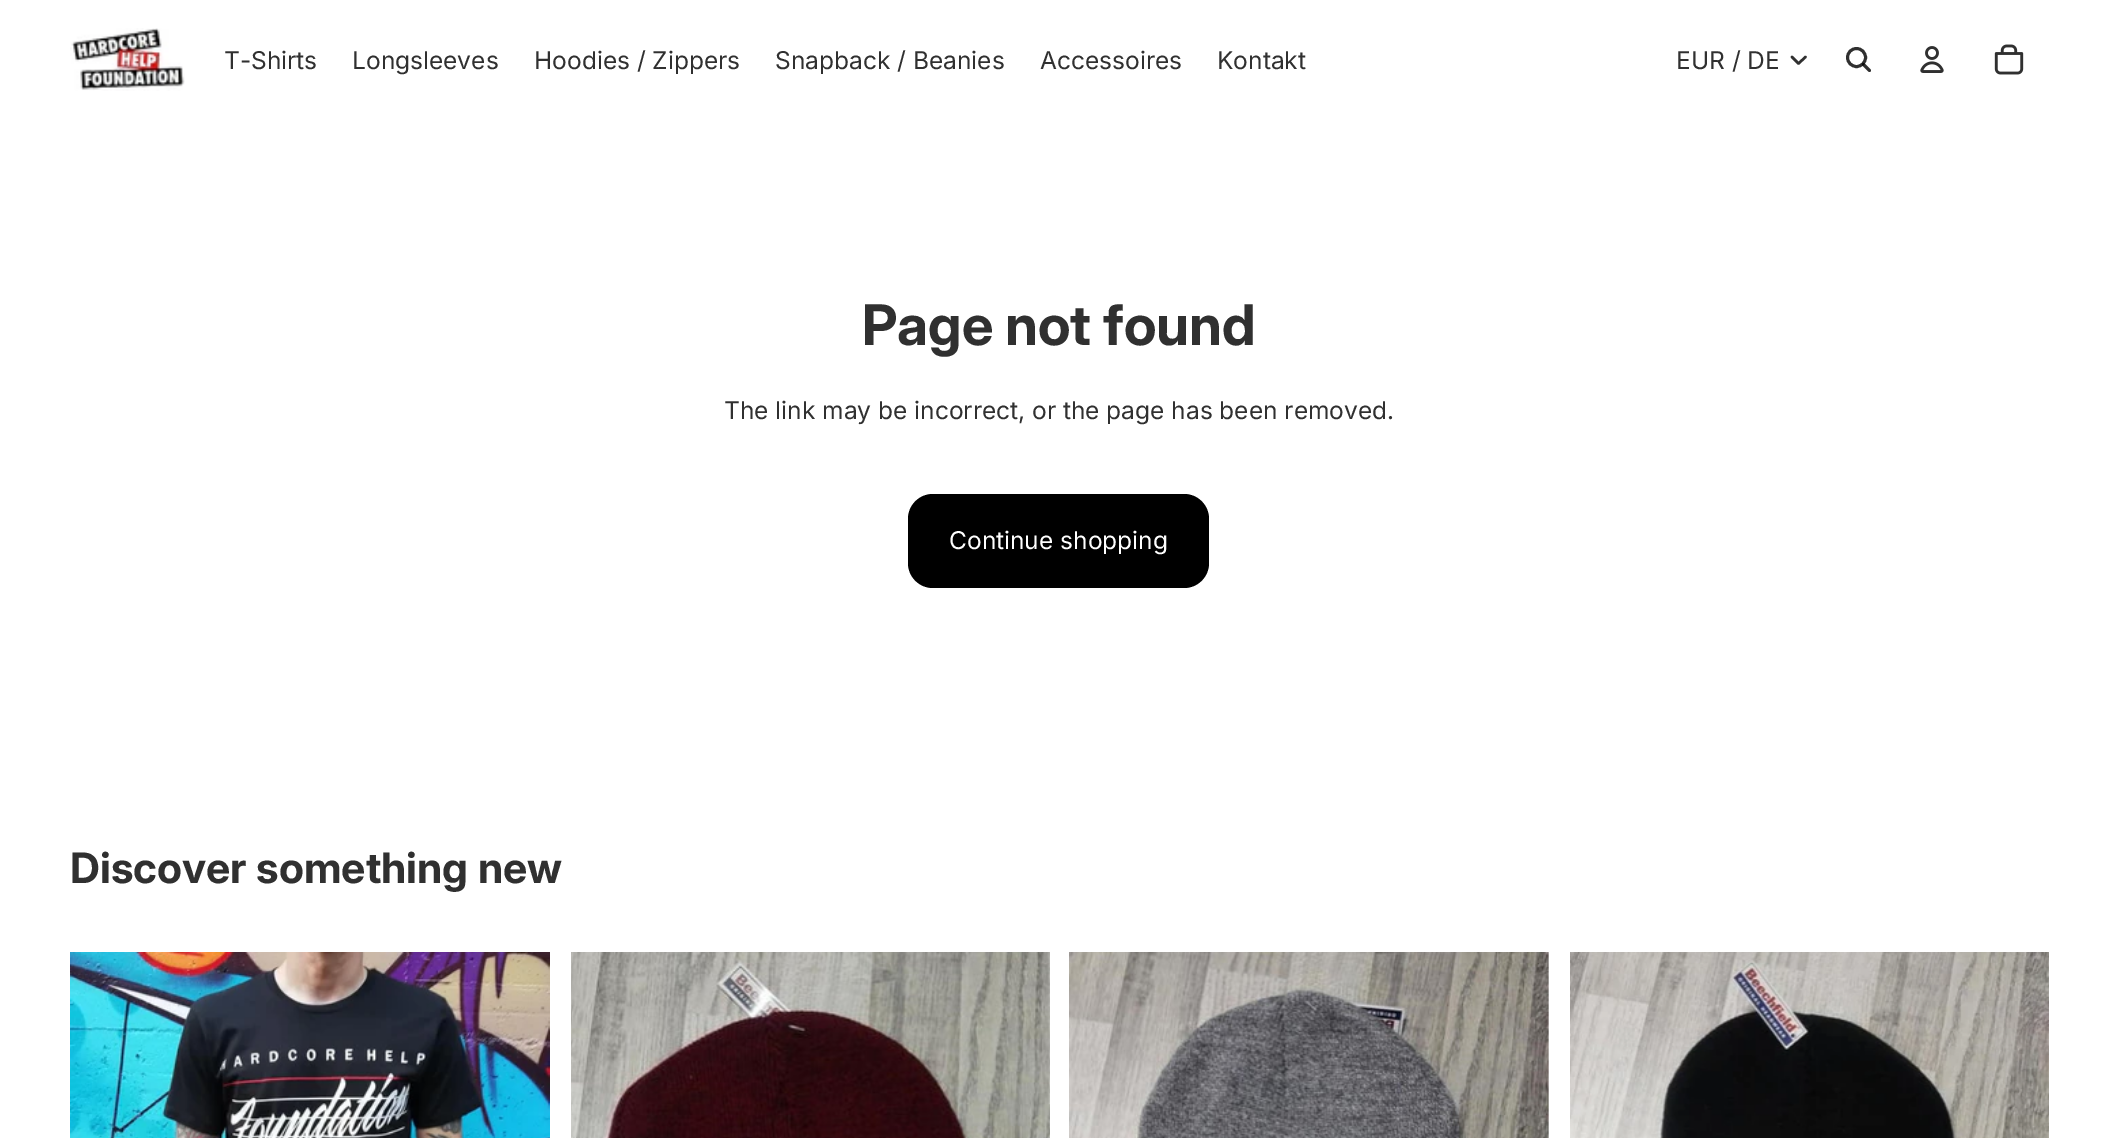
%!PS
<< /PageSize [2117 1138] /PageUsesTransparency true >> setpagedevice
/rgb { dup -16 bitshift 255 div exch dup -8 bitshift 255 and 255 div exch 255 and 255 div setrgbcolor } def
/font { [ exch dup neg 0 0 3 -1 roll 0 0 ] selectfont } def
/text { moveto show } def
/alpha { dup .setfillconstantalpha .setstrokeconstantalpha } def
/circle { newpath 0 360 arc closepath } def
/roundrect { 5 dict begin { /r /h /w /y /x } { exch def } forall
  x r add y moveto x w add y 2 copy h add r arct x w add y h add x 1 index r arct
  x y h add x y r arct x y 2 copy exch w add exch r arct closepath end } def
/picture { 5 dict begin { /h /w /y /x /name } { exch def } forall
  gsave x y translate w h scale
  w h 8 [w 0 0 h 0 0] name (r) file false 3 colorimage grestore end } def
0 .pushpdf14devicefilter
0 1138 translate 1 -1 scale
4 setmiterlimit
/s1 { /Inter-Regular 24.5 font 16#303030 rgb } def
/s2 { /Inter-Bold 56 font 16#303030 rgb } def
/s3 { /Inter-Regular 24.5 font 16#FFFFFF rgb } def
/s4 { /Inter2-Bold 42 font 16#303030 rgb } def
16#FFFFFF rgb
0 0 2117 1138 rectfill
(pic1.raw) 70 28 115 63 picture
s1
(T-Shirts) 224 69 text
(Longsleeves) 352 69 text
(Hoodies / Zippers) 534 69 text
(Snapback / Beanies) 775 69 text
(Accessoires) 1040 69 text
(Kontakt) 1217 69 text
(EUR / DE) 1676 69 text
2.5 setlinewidth
1 setlinecap
1 setlinejoin
1805.5 57 moveto 1798.5 63.5 lineto 1792 57 lineto stroke
2.9 setlinewidth
0 setlinecap
0 setlinejoin
1856.5 57.5 9 circle stroke
0.81 alpha
16#000000 rgb
1 setlinecap
1 setlinejoin
1863.5 64.5 moveto 1869.5 70.5 lineto stroke
1 alpha
(pic2.raw) 1920 46 24 27 picture
(pic3.raw) 1994 44 30 31 picture
s2
(Page not found) 862 345 text
s1
(The link may be incorrect, or the page has been removed.) 724 419 text
16#000000 rgb
908 494 301 94 25 roundrect fill
s3
(Continue shopping) 949 549 text
s4
(Discover something new) 70 883 text
(pic4.raw) 70 952 480 186 picture
(pic5.raw) 571 952 479 186 picture
(pic6.raw) 1069 952 480 186 picture
(pic7.raw) 1570 952 479 186 picture
.poppdf14devicefilter showpage
